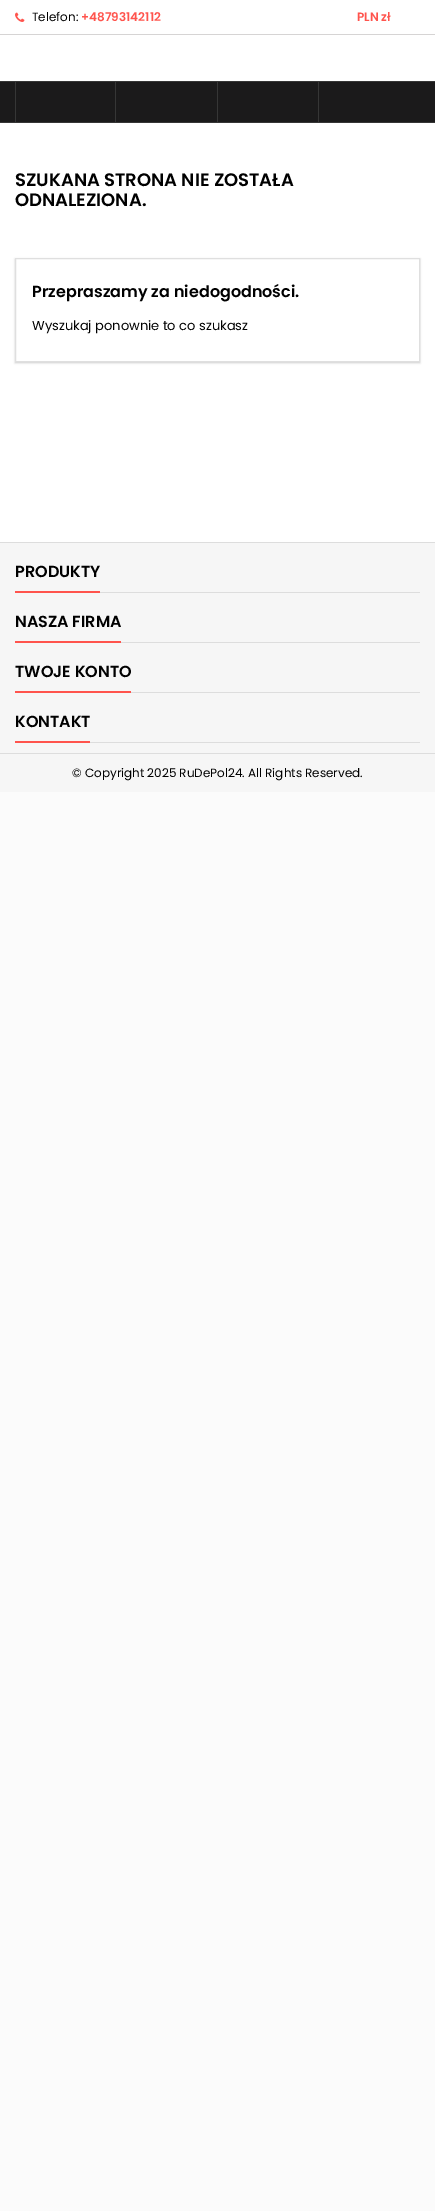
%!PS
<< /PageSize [435 2211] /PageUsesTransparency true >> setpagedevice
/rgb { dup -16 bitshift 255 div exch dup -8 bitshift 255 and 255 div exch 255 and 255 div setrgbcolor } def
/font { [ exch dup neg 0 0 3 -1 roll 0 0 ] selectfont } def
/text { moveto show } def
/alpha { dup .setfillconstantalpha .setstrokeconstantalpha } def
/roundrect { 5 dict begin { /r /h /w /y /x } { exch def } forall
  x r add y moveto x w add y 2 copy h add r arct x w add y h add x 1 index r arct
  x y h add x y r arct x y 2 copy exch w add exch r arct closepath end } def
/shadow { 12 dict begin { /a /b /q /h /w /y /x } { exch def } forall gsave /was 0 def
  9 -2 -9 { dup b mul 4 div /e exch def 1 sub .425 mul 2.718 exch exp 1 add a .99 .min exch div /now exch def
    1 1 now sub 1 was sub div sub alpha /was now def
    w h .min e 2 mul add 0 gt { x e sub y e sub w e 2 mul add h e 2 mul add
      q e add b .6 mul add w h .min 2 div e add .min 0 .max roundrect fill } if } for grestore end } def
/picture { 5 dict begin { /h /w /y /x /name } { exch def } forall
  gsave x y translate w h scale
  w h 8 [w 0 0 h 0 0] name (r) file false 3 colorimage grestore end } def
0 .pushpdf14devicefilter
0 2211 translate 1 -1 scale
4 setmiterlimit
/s1 { /Poppins-Regular 12 font 16#000000 rgb } def
/s2 { /Poppins-SemiBold 12 font 16#FF544D rgb } def
/s3 { /Poppins-SemiBold 18 font 16#000000 rgb } def
/s4 { /Poppins-SemiBold 16 font 16#000000 rgb } def
/s5 { /Poppins-Regular 13 font 16#000000 rgb } def
16#FBFBFB rgb
0 0 435 2211 rectfill
16#FFFFFF rgb
0 0 435 542 rectfill
16#D6D4D4 rgb
0 34 435 1 rectfill
(pic1.raw) 15 12 10 10 picture
s1
(Telefon:) 32 21 text
s2
(+48793142112) 81 21 text
(PLN zł) 357 21 text
16#1B1A1B rgb
0 82 435 40 rectfill
16#363636 rgb
0 81 435 1 rectfill
0 122 435 1 rectfill
115 82 1 40 rectfill
15 82 1 40 rectfill
217 82 1 40 rectfill
318 82 1 40 rectfill
s3
(SZUKANA STRONA NIE ZOSTAŁA) 15 186 text
(ODNALEZIONA.) 15 206 text
gsave
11 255 moveto 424 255 lineto 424 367 lineto 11 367 lineto closepath 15 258 moveto 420 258 lineto 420 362 lineto 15 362 lineto closepath eoclip newpath
15 259 405 104 0 1 0.2 shadow
grestore
16#DFDFDF rgb
15.5 258.5 404 103 rectstroke
s4
(Przepraszamy za niedogodności.) 32 297 text
s5
(Wyszukaj ponownie to co szukasz) 32 330 text
16#F6F6F6 rgb
0 543 435 210 rectfill
16#DDDDDD rgb
0 542 435 1 rectfill
100 592 320 1 rectfill
16#FF544D rgb
15 591 85 2 rectfill
s4
(PRODUKTY) 15 577 text
16#DDDDDD rgb
121 642 299 1 rectfill
16#FF544D rgb
15 641 106 2 rectfill
s4
(NASZA FIRMA) 15 627 text
16#DDDDDD rgb
131 692 289 1 rectfill
16#FF544D rgb
15 691 116 2 rectfill
s4
(TWOJE KONTO) 15 677 text
16#DDDDDD rgb
90 742 330 1 rectfill
16#FF544D rgb
15 741 75 2 rectfill
s4
(KONTAKT) 15 727 text
16#F6F6F6 rgb
0 754 435 38 rectfill
16#DDDDDD rgb
0 753 435 1 rectfill
s1
(© Copyright 2025 RuDePol24. All Rights Reserved.) 72 777 text
.poppdf14devicefilter showpage
